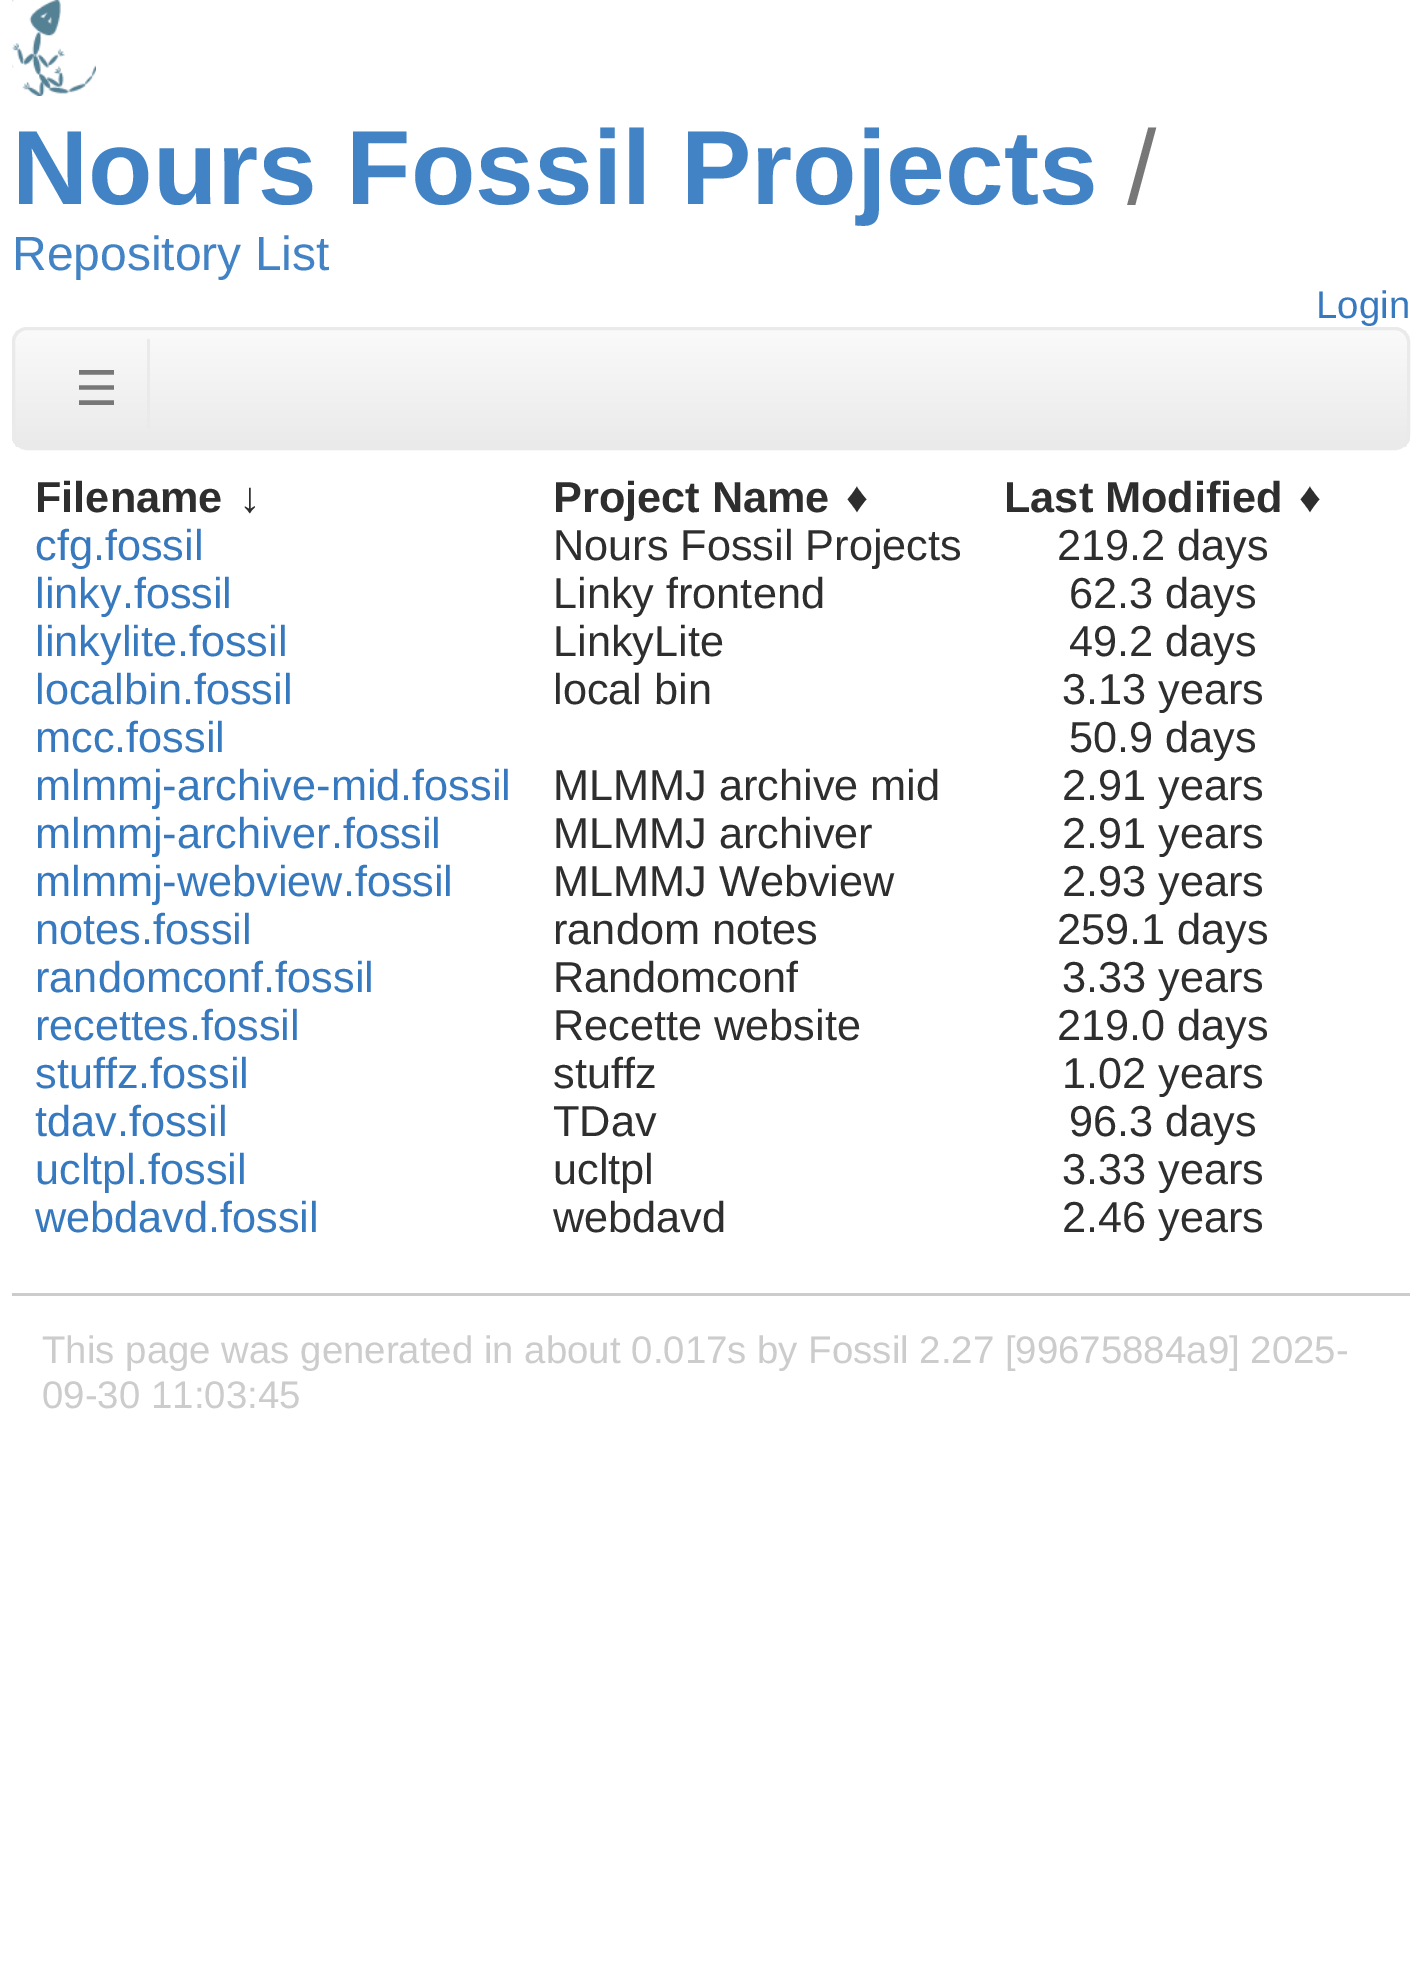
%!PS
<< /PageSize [1420 1965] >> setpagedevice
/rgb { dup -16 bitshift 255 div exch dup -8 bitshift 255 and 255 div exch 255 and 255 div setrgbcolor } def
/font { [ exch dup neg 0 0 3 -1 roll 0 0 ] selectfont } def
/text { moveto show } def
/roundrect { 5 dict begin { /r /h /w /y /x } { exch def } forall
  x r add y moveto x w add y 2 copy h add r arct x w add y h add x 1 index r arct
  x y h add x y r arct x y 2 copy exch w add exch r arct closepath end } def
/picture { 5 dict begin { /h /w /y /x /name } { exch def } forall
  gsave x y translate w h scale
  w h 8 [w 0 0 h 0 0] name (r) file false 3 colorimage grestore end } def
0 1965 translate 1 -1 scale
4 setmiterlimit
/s1 { /LiberationSans-Bold 105.6 font 16#4183C4 rgb } def
/s2 { /LiberationSans-Regular 105.6 font 16#777777 rgb } def
/s3 { /LiberationSans-Regular 48 font 16#4183C4 rgb } def
/s4 { /LiberationSans-Regular 38.4 font 16#3779BF rgb } def
/s5 { /DejaVuSans-Regular 48 font 16#777777 rgb } def
/s6 { /LiberationSans-Bold 43.25 font 16#2E2E2E rgb } def
/s7 { /LiberationSans-Regular 43.25 font 16#3779BF rgb } def
/s8 { /LiberationSans-Regular 43.25 font 16#2E2E2E rgb } def
/s9 { /LiberationSans-Regular 38.4 font 16#CCCCCC rgb } def
16#FFFFFF rgb
0 0 1420 1965 rectfill
(pic1.raw) 12 0 84 96 picture
s1
(Nours Fossil Projects) 12 204 text
s2
(/) 1127 204 text
s3
(Repository List) 12 270 text
s4
(Login) 1316 318 text
gsave
12 327 1398 123 15 roundrect clip newpath
gsave 12 330 moveto 1410 330 lineto 1410 447 lineto 12 447 lineto closepath clip newpath
<< /ShadingType 2 /ColorSpace /DeviceRGB /Coords [711 330 711 447] /Extend [true true] /Function << /FunctionType 2 /Domain [0 1] /C0 [0.98 0.98 0.98] /C1 [0.918 0.918 0.918] /N 1 >> >> shfill grestore
grestore
16#EAEAEA rgb
3 setlinewidth
13.5 328.5 1395 120 13.5 roundrect stroke
s5
(☰) 75 405 text
16#EAEAEA rgb
147 339 3 90 rectfill
s6
(Filename) 35 512 text
(↓) 239 512 text
(Project Name) 553 512 text
(♦) 846 512 text
(Last Modified) 1004 512 text
(♦) 1299 512 text
s7
(cfg.fossil) 35 560 text
s8
(Nours Fossil Projects) 553 560 text
(219.2 days) 1057 560 text
s7
(linky.fossil) 35 608 text
s8
(Linky frontend) 553 608 text
(62.3 days) 1069 608 text
s7
(linkylite.fossil) 35 656 text
s8
(LinkyLite) 553 656 text
(49.2 days) 1069 656 text
s7
(localbin.fossil) 35 704 text
s8
(local bin) 553 704 text
(3.13 years) 1062 704 text
s7
(mcc.fossil) 35 752 text
s8
(50.9 days) 1069 752 text
s7
(mlmmj-archive-mid.fossil) 35 800 text
s8
(MLMMJ archive mid) 553 800 text
(2.91 years) 1062 800 text
s7
(mlmmj-archiver.fossil) 35 848 text
s8
(MLMMJ archiver) 553 848 text
(2.91 years) 1062 848 text
s7
(mlmmj-webview.fossil) 35 896 text
s8
(MLMMJ Webview) 553 896 text
(2.93 years) 1062 896 text
s7
(notes.fossil) 35 944 text
s8
(random notes) 553 944 text
(259.1 days) 1057 944 text
s7
(randomconf.fossil) 35 992 text
s8
(Randomconf) 553 992 text
(3.33 years) 1062 992 text
s7
(recettes.fossil) 35 1040 text
s8
(Recette website) 553 1040 text
(219.0 days) 1057 1040 text
s7
(stuffz.fossil) 35 1088 text
s8
(stuffz) 553 1088 text
(1.02 years) 1062 1088 text
s7
(tdav.fossil) 35 1136 text
s8
(TDav) 553 1136 text
(96.3 days) 1069 1136 text
s7
(ucltpl.fossil) 35 1184 text
s8
(ucltpl) 553 1184 text
(3.33 years) 1062 1184 text
s7
(webdavd.fossil) 35 1232 text
s8
(webdavd) 553 1232 text
(2.46 years) 1062 1232 text
16#CCCCCC rgb
12 1293 1398 3 rectfill
s9
(This page was generated in about 0.017s by Fossil 2.27 [99675884a9] 2025-) 42 1363 text
(09-30 11:03:45) 42 1408 text
showpage
